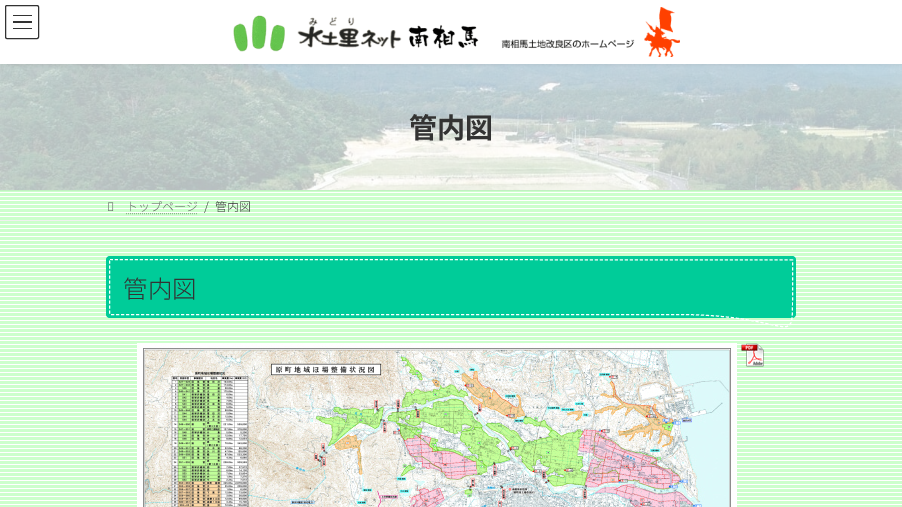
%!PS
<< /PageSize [902 507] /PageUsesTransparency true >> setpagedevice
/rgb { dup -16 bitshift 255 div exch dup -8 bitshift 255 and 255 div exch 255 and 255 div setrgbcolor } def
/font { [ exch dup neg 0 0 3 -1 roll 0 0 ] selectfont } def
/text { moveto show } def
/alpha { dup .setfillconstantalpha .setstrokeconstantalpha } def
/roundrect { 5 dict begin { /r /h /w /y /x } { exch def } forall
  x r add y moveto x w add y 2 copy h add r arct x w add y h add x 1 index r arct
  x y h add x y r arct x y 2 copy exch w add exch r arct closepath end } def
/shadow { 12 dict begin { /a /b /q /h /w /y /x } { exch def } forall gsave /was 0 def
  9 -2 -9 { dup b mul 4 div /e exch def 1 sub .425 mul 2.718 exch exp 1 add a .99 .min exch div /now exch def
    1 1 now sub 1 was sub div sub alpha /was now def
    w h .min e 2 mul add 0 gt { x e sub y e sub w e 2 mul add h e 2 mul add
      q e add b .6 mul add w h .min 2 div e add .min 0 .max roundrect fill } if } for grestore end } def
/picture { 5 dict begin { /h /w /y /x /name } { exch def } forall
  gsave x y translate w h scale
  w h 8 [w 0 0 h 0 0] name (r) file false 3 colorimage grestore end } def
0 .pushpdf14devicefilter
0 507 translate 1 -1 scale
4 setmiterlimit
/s1 { /NotoSansJP-Bold 28 font 16#333333 rgb } def
/s2 { /NotoSansJP-Light 12 font 16#666666 rgb } def
/s3 { /NotoSansJP-Light 12 font 16#333333 rgb } def
/s4 { /NotoSansJP-Light 24.5 font 16#333333 rgb } def
16#FFFFFF rgb
0 0 902 507 rectfill
(pic1.raw) 0 191 902 316 picture
(pic3.raw) 0 64 902 126 picture
16#000000 rgb
0 1 902 64 0 1.5 0.05 shadow
16#FFFFFF rgb
0 0 902 64 rectfill
(pic2.raw) 233 7 447 50 picture
16#333333 rgb
13 15 19 1 rectfill
13 21 19 2 rectfill
13 28 19 1 rectfill
5.5 5.5 33 33 1.5 roundrect stroke
s1
(管内図) 409 138 text
16#C0F0C0 rgb
0 190 902 1 rectfill
16#F0F0F0 rgb
0 220 902 1 rectfill
(pic4.raw) 108 202 6 9 picture
s2
(トップページ) 126 211 text
16#8FB38F rgb
[1 1] 0 setdash
126 213.5 moveto 198 213.5 lineto stroke
s3
(/) 204 211 text
(管内図) 215 211 text
16#00CC99 rgb
106 256 690 62 4 roundrect fill
s4
(管内図) 123 298 text
16#FFFFFF rgb
[3 2] 0 setdash
110 259.5 moveto 792.5 260 lineto 792.5 296 lineto 792.5 352 795 314.5 678.5 314.5 curveto 110 314.5 lineto 109.5 314 lineto 109.5 260 lineto closepath stroke
(pic5.raw) 741 343 23 24 picture
(pic6.raw) 137 343 600 164 picture
.poppdf14devicefilter showpage
